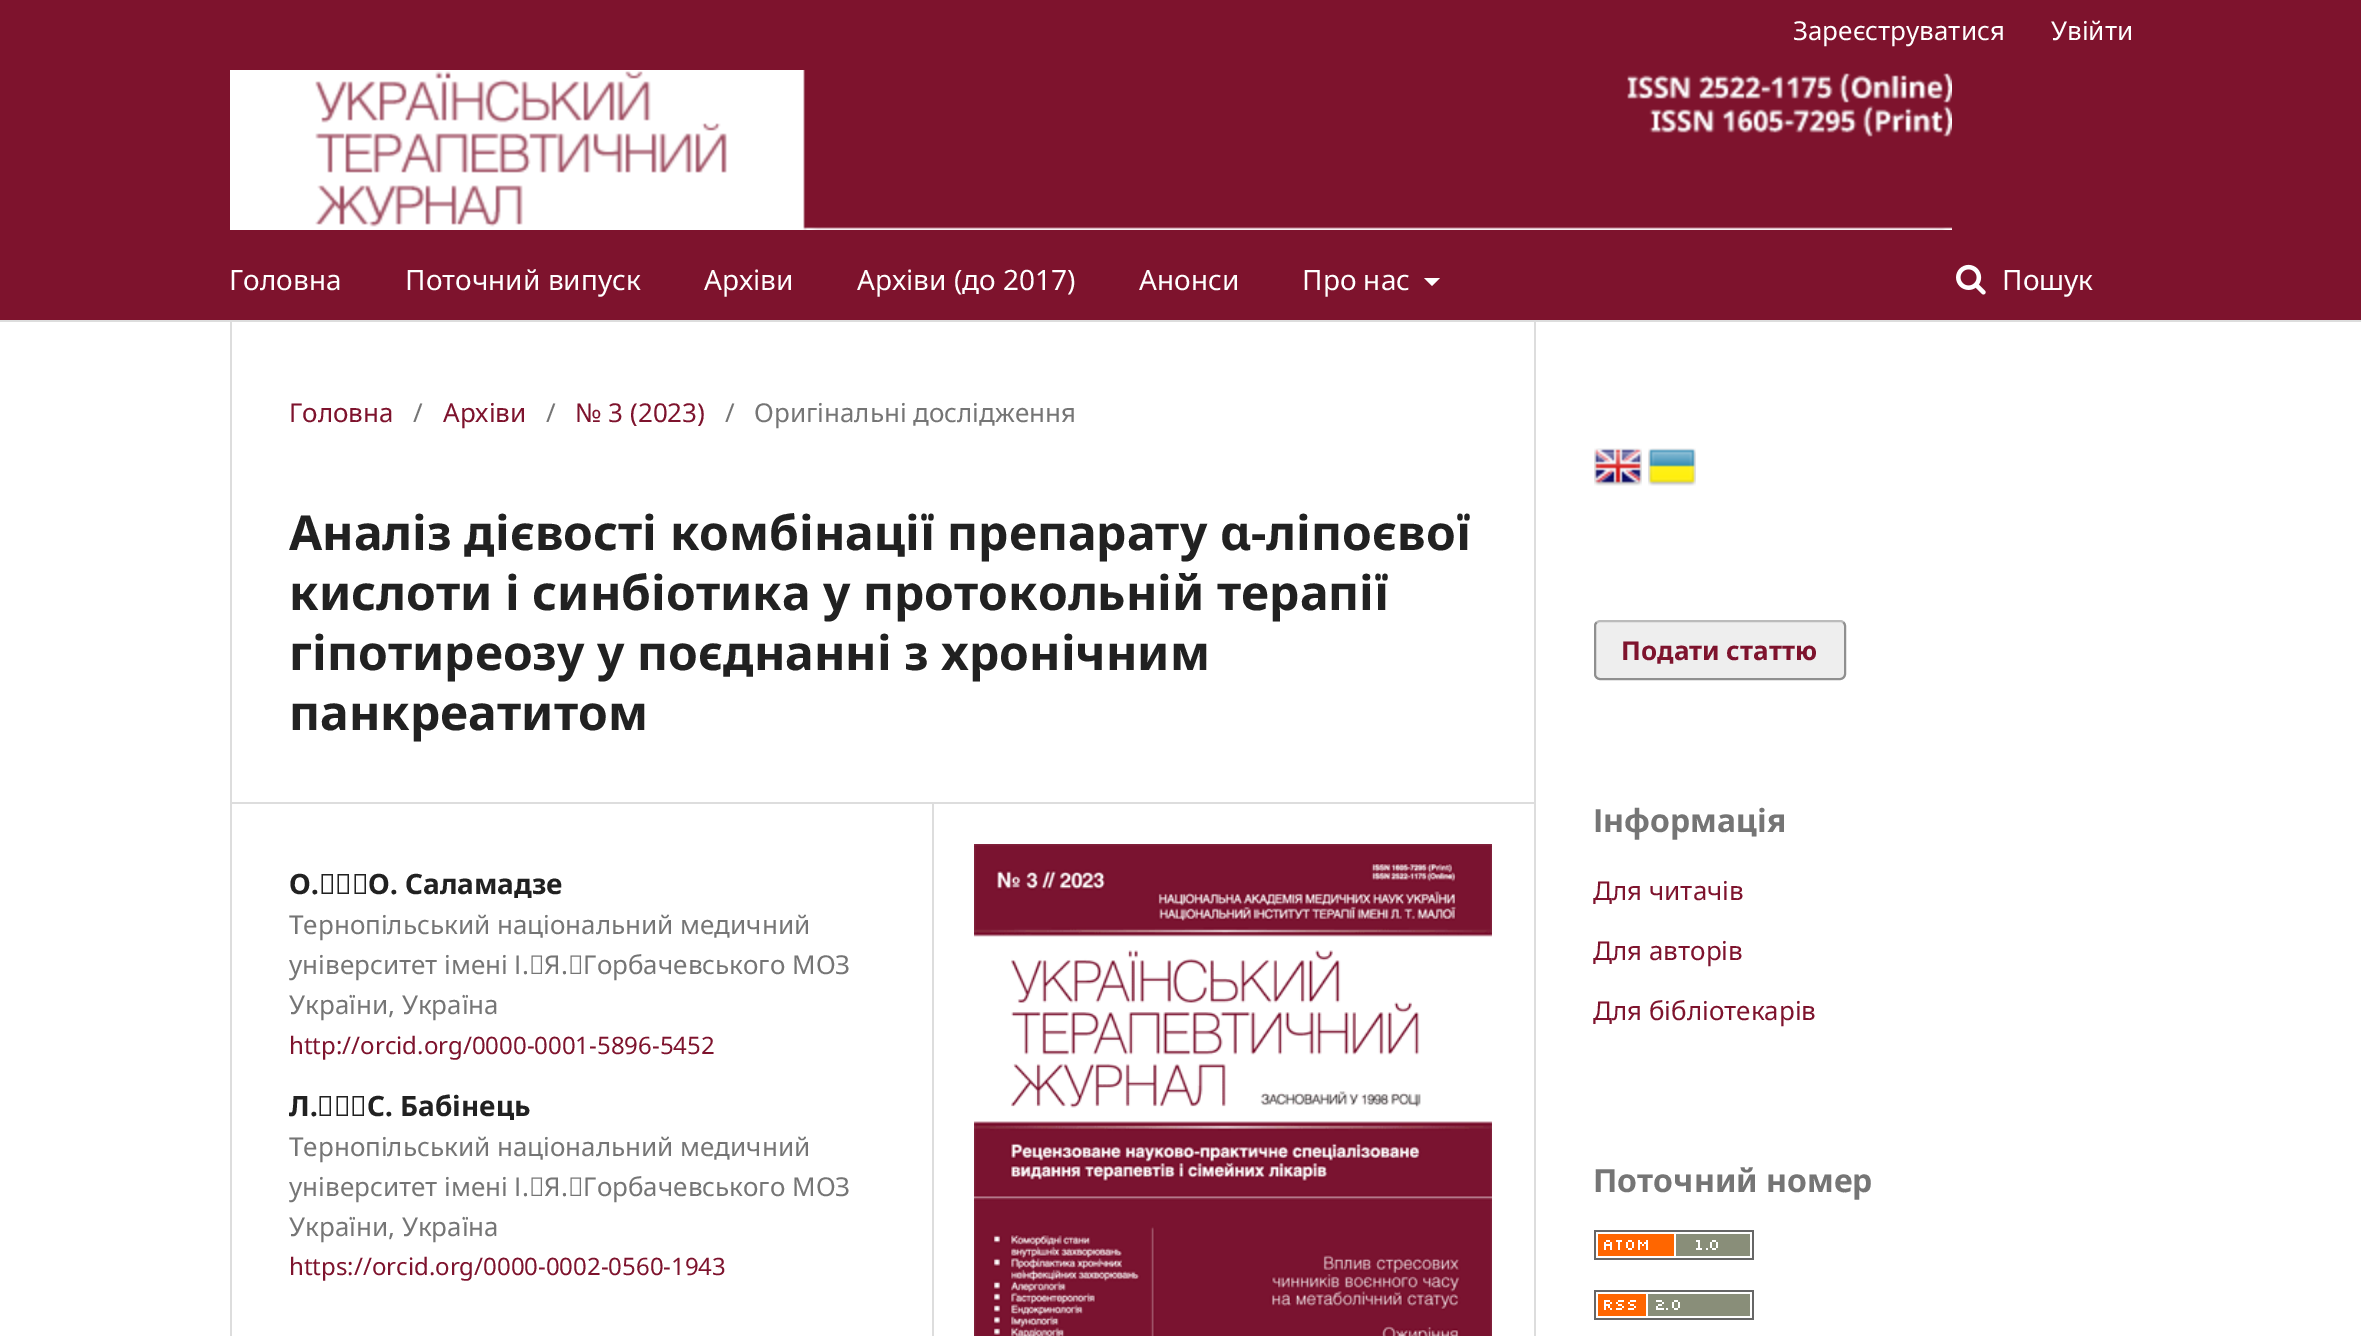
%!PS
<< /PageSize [2361 1336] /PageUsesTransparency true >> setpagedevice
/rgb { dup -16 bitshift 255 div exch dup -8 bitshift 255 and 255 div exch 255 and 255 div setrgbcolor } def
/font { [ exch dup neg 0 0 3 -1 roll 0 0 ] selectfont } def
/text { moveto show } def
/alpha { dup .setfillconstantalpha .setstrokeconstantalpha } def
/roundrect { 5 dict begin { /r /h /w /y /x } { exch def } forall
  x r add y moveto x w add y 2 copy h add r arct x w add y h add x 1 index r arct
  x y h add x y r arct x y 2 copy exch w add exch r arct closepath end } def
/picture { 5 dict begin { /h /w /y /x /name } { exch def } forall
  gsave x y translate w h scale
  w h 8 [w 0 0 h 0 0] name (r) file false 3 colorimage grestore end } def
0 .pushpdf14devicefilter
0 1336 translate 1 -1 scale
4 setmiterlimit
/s1 { /NotoSans-Regular 26 font 16#FFFFFF rgb } def
/s2 { /NotoSans-Regular 28 font 16#FFFFFF rgb } def
/s3 { /NotoSans-Regular 26 font 16#7E132D rgb } def
/s4 { /NotoSans-Regular 26 font 16#757575 rgb } def
/s5 { /NotoSans-Bold 48 font 16#212121 rgb } def
/s6 { /NotoSans-Bold 28 font 16#212121 rgb } def
/s7 { /NotoSans-Regular 24 font 16#7E132D rgb } def
/s8 { /NotoSans-Bold 26 font 16#7E132D rgb } def
/s9 { /NotoSans-Bold 32 font 16#757575 rgb } def
16#FFFFFF rgb
0 0 2361 1336 rectfill
16#7E132D rgb
0 0 2361 320 rectfill
16#DDDDDD rgb
0 320 2361 2 rectfill
s1
(Зареєструватися) 1793 40 text
(Увійти) 2051 40 text
s2
(Головна) 229 290 text
(Поточний випуск) 405 290 text
(Архіви) 704 290 text
(Архіви \(до 2017\)) 857 290 text
(Анонси) 1139 290 text
(Про нас) 1302 290 text
1424 278 moveto 1440 278 lineto 1432 286 lineto closepath fill
(pic1.raw) 1956 264 30 31 picture
(Пошук) 2002 290 text
(pic2.raw) 230 70 1722 160 picture
16#DDDDDD rgb
230 802 1304 2 rectfill
230 322 2 1014 rectfill
s3
(Головна) 289 422 text
s4
(/) 413 422 text
s3
(Архіви) 443 422 text
s4
(/) 546 422 text
s3
(№ 3 \(2023\)) 575 422 text
s4
(/) 725 422 text
(Оригінальні дослідження) 754 422 text
s5
(Аналіз дієвості комбінації препарату α-ліпоєвої) 289 550 text
(кислоти і синбіотика у протокольній терапії) 289 610 text
(гіпотиреозу у поєднанні з хронічним) 289 670 text
(панкреатитом) 289 730 text
16#DDDDDD rgb
932 804 2 532 rectfill
s6
(О. О. Саламадзе) 289 894 text
s4
(Тернопільський національний медичний) 289 934 text
(університет імені І. Я. Горбачевського МОЗ) 289 974 text
(України, Україна) 289 1014 text
s7
(http://orcid.org/0000-0001-5896-5452) 289 1054 text
s6
(Л. С. Бабінець) 289 1116 text
s4
(Тернопільський національний медичний) 289 1156 text
(університет імені І. Я. Горбачевського МОЗ) 289 1196 text
(України, Україна) 289 1236 text
s7
(https://orcid.org/0000-0002-0560-1943) 289 1275 text
(pic3.raw) 974 844 518 492 picture
16#DDDDDD rgb
1534 322 2 1014 rectfill
(pic4.raw) 1594 448 48 38 picture
(pic5.raw) 1648 448 48 38 picture
16#EEEEEE rgb
1594 620 252 60 6 roundrect fill
16#BBBBBB rgb
2 setlinewidth
1596.5 622.5 moveto 1599.5 621 lineto 1840 621 lineto 1841.5 621 1842.5 621.5 1843.5 622.5 curveto stroke
0.4 alpha
16#000000 rgb
1843.5 622.5 moveto 1844.5 623.5 1845 624.5 1845 626 curveto 1845 674 lineto 1845 675.5 1844.5 676.5 1843.5 677.5 curveto 1842.5 678.5 1841.5 679 1840 679 curveto 1600 679 lineto 1598.5 679 1597.5 678.5 1596.5 677.5 curveto 1595.5 676.5 1595 675.5 1595 674 curveto 1595 626 lineto 1595 624.5 1595.5 623.5 1596.5 622.5 curveto stroke
1 alpha
s8
(Подати статтю) 1621 660 text
s9
(Інформація) 1593 832 text
s3
(Для читачів) 1593 900 text
(Для авторів) 1593 960 text
(Для бібліотекарів) 1593 1020 text
s9
(Поточний номер) 1593 1192 text
(pic6.raw) 1594 1230 160 30 picture
(pic7.raw) 1594 1290 160 30 picture
.poppdf14devicefilter showpage
